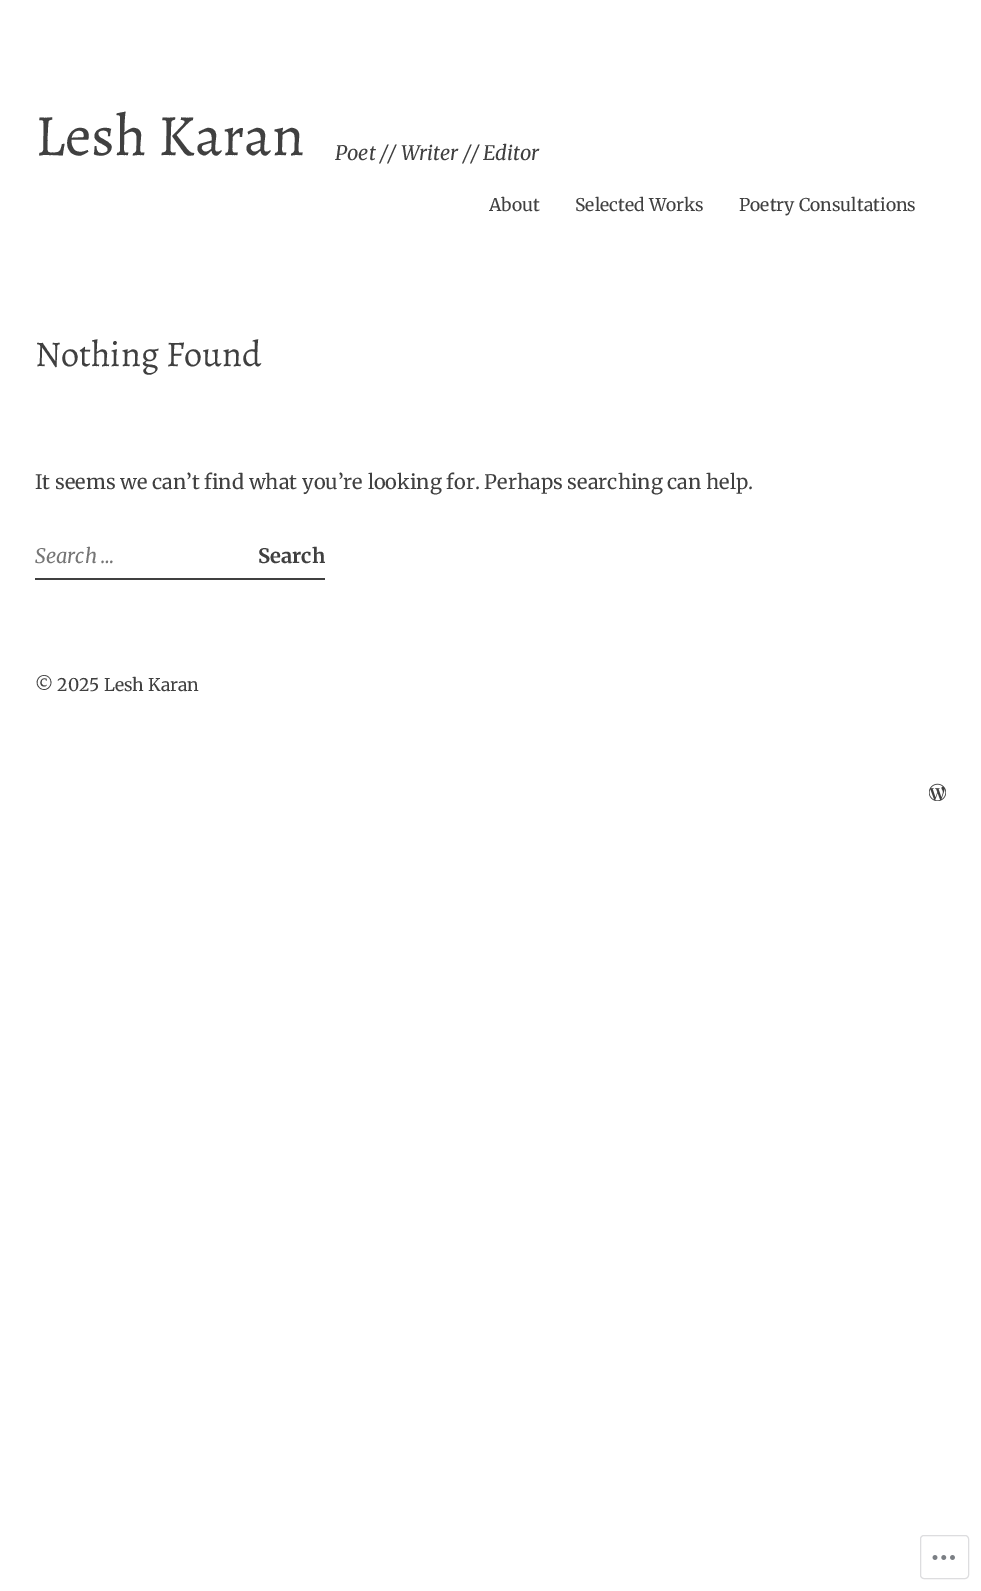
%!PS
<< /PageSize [981 1591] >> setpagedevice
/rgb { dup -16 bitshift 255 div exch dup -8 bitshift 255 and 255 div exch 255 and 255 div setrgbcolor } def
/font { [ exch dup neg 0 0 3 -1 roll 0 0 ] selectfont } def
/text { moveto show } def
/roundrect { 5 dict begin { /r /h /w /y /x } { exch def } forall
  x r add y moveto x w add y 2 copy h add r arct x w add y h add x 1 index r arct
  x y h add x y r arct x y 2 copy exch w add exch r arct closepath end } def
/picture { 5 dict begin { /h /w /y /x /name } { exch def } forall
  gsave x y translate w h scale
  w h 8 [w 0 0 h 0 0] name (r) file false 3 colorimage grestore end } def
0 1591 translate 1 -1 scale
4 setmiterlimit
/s1 { /Alegreya-Regular 58.75 font 16#404040 rgb } def
/s2 { /Merriweather-Italic 20 font 16#404040 rgb } def
/s3 { /Merriweather-Regular 17.5 font 16#404040 rgb } def
/s4 { /Alegreya-Regular 36.25 font 16#404040 rgb } def
/s5 { /Merriweather-Regular 20 font 16#404040 rgb } def
/s6 { /Merriweather-Italic 20 font 16#757575 rgb } def
/s7 { /Merriweather-Bold 20 font 16#404040 rgb } def
16#FFFFFF rgb
0 0 981 1591 rectfill
s1
(Lesh Karan) 35 155 text
s2
(Poet // Writer // Editor) 335 160 text
s3
(About) 489 211 text
(Selected Works) 575 211 text
(Poetry Consultations) 739 211 text
s4
(Nothing Found) 35 366 text
s5
(It seems we can’t find what you’re looking for. Perhaps searching can help.) 35 489 text
35 578 290 2 rectfill
s6
(Search …) 35 563 text
s7
(Search) 258 563 text
s3
(© 2025 Lesh Karan) 35 691 text
(pic1.raw) 929 783 17 18 picture
16#DDDDDF rgb
920.5 1535.5 48 43 3.5 roundrect stroke
(pic2.raw) 932 1555 23 5 picture
showpage
